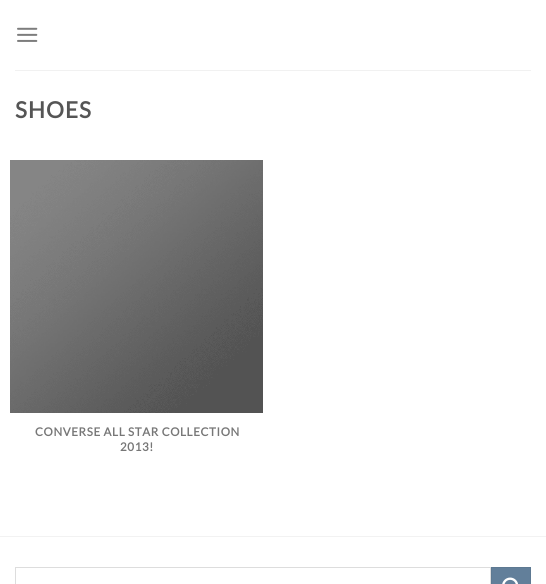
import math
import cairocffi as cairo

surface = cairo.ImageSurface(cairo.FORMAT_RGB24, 546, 584)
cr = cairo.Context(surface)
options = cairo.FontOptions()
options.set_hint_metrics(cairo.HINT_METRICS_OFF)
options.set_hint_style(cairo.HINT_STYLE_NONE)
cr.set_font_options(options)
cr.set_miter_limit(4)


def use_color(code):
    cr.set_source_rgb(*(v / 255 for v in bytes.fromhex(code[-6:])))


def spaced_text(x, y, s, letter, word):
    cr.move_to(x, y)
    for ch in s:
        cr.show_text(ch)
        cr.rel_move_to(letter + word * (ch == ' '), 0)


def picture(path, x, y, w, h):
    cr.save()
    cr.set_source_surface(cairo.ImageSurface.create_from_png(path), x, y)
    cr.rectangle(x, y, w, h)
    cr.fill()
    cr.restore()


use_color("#ffffff")
cr.paint()
picture("img1.png", 17, 27, 21, 15)
use_color("#f1f1f1")
cr.rectangle(15, 70, 516, 1)
cr.fill()
cr.select_font_face("Lato", cairo.FONT_SLANT_NORMAL, cairo.FONT_WEIGHT_BOLD)
cr.set_font_size(22.5)
use_color("#555555")
spaced_text(15, 118, "SHOES", 1, 0)
picture("img2.png", 10, 160, 253, 253)
cr.set_font_size(11.6)
use_color("#777777")
spaced_text(35, 436, "CONVERSE ALL STAR COLLECTION", 0.6, 0)
spaced_text(120, 451, "2013!", 0.6, 0)
use_color("#f2f2f2")
cr.rectangle(0, 536, 546, 1)
cr.fill()
cr.rectangle(15.5, 567.5, 475, 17)
use_color("#dddddd")
cr.set_line_width(1)
cr.stroke()
use_color("#627f9a")
cr.rectangle(491.5, 567.5, 39, 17)
cr.fill_preserve()
use_color("#5d7992")
cr.stroke()
picture("img3.png", 502, 577, 16, 7)
surface.write_to_png("result.png")
